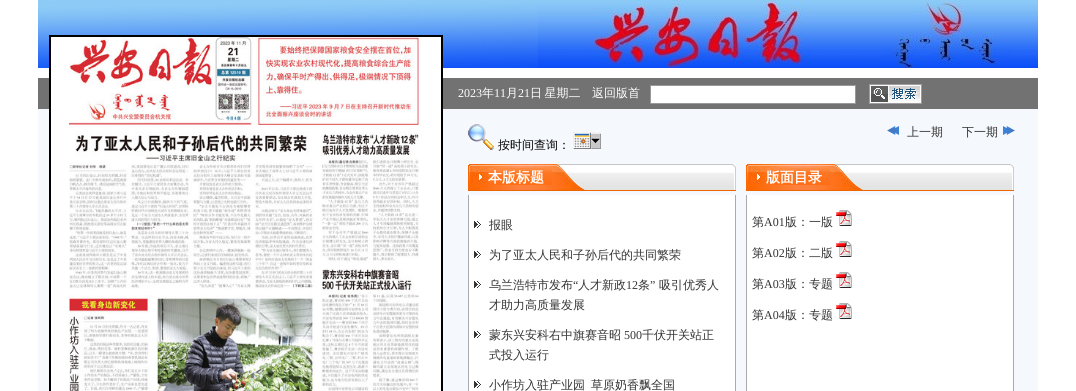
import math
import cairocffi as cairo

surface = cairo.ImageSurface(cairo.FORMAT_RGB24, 1076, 391)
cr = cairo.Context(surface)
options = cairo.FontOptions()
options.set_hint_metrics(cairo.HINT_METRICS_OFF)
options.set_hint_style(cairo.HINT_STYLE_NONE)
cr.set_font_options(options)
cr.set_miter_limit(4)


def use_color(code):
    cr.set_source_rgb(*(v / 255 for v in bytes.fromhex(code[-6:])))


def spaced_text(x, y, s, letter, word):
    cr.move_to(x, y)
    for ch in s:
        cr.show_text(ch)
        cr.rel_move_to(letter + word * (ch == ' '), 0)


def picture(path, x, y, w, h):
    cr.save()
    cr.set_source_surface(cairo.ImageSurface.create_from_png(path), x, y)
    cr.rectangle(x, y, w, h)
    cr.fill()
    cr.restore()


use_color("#ffffff")
cr.paint()
use_color("#f5f8fc")
cr.rectangle(38, 109, 1000, 282)
cr.fill()
picture("img1.png", 38, 0, 500, 68)
picture("img2.png", 538, 0, 500, 68)
use_color("#727272")
cr.rectangle(38, 78, 1000, 31)
cr.fill()
use_color("#ffffff")
cr.rectangle(50, 36, 392, 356)
cr.fill_preserve()
use_color("#000000")
cr.stroke()
picture("img3.png", 69, 37, 350, 354)
cr.select_font_face("Liberation Serif")
cr.set_font_size(12)
use_color("#ffffff")
cr.move_to(458, 97)
cr.show_text("2023")
cr.select_font_face("WenQuanYi Zen Hei Medium")
cr.move_to(482, 97)
cr.show_text("年")
cr.select_font_face("Liberation Serif")
cr.move_to(494, 97)
cr.show_text("11")
cr.select_font_face("WenQuanYi Zen Hei Medium")
cr.move_to(506, 97)
cr.show_text("月")
cr.select_font_face("Liberation Serif")
cr.move_to(518, 97)
cr.show_text("21")
cr.select_font_face("WenQuanYi Zen Hei Medium")
spaced_text(530, 97, "日 星期二", 0, -1)
cr.move_to(592, 97)
cr.show_text("返回版首")
cr.rectangle(650.5, 85.5, 205, 18)
cr.fill_preserve()
use_color("#999999")
cr.set_line_width(1)
cr.stroke()
picture("img4.png", 869, 84, 53, 20)
picture("img5.png", 887, 126, 128, 9)
use_color("#333333")
cr.move_to(907, 136)
cr.show_text("上一期")
cr.move_to(962, 136)
cr.show_text("下一期")
picture("img6.png", 468, 124, 26, 26)
use_color("#000000")
cr.move_to(498, 149)
cr.show_text("按时间查询：")
picture("img7.png", 573, 132, 28, 17)
picture("img8.png", 468, 164, 268, 27)
cr.select_font_face("WenQuanYi Zen Hei", cairo.FONT_SLANT_NORMAL, cairo.FONT_WEIGHT_BOLD)
cr.set_font_size(14)
use_color("#ffffff")
cr.move_to(488, 182)
cr.show_text("本版标题")
cr.rectangle(469, 195, 266, 196)
cr.fill()
use_color("#aaaaaa")
cr.rectangle(735, 195, 1, 196)
cr.fill()
cr.rectangle(468, 195, 1, 196)
cr.fill()
picture("img9.png", 474, 221, 7, 7)
cr.select_font_face("WenQuanYi Zen Hei Medium")
cr.set_font_size(12)
use_color("#333333")
cr.move_to(489, 229)
cr.show_text("报眼")
picture("img9.png", 474, 251, 7, 7)
cr.move_to(489, 259)
cr.show_text("为了亚太人民和子孙后代的共同繁荣")
picture("img9.png", 474, 281, 7, 7)
cr.move_to(489, 289)
cr.show_text("乌兰浩特市发布")
cr.select_font_face("Liberation Serif")
cr.move_to(573, 289)
cr.show_text("“")
cr.select_font_face("WenQuanYi Zen Hei Medium")
cr.move_to(578, 289)
cr.show_text("人才新政")
cr.select_font_face("Liberation Serif")
cr.move_to(626, 289)
cr.show_text("12")
cr.select_font_face("WenQuanYi Zen Hei Medium")
cr.move_to(638, 289)
cr.show_text("条")
cr.select_font_face("Liberation Serif")
cr.move_to(650, 289)
cr.show_text("”")
cr.select_font_face("WenQuanYi Zen Hei Medium")
cr.move_to(659, 289)
cr.show_text("吸引优秀人")
cr.move_to(489, 309)
cr.show_text("才助力高质量发展")
picture("img9.png", 474, 331, 7, 7)
cr.move_to(489, 339)
cr.show_text("蒙东兴安科右中旗赛音昭")
cr.select_font_face("Liberation Serif")
cr.move_to(624, 339)
cr.show_text("500")
cr.select_font_face("WenQuanYi Zen Hei Medium")
cr.move_to(642, 339)
cr.show_text("千伏开关站正")
cr.move_to(489, 359)
cr.show_text("式投入运行")
picture("img9.png", 474, 381, 7, 7)
cr.move_to(489, 389)
cr.show_text("小作坊入驻产业园")
cr.move_to(591, 389)
cr.show_text("草原奶香飘全国")
picture("img8.png", 746, 164, 268, 27)
cr.select_font_face("WenQuanYi Zen Hei", cairo.FONT_SLANT_NORMAL, cairo.FONT_WEIGHT_BOLD)
cr.set_font_size(14)
use_color("#ffffff")
cr.move_to(766, 182)
cr.show_text("版面目录")
cr.rectangle(747, 195, 266, 196)
cr.fill()
use_color("#aaaaaa")
cr.rectangle(1013, 195, 1, 196)
cr.fill()
cr.rectangle(746, 195, 1, 196)
cr.fill()
cr.select_font_face("WenQuanYi Zen Hei Medium")
cr.set_font_size(12)
use_color("#333333")
cr.move_to(752, 226)
cr.show_text("第")
cr.select_font_face("Liberation Serif")
cr.move_to(764, 226)
cr.show_text("A01")
cr.select_font_face("WenQuanYi Zen Hei Medium")
cr.move_to(785, 226)
cr.show_text("版：一版")
picture("img10.png", 836, 210, 16, 16)
cr.move_to(752, 257)
cr.show_text("第")
cr.select_font_face("Liberation Serif")
cr.move_to(764, 257)
cr.show_text("A02")
cr.select_font_face("WenQuanYi Zen Hei Medium")
cr.move_to(785, 257)
cr.show_text("版：二版")
picture("img10.png", 836, 241, 16, 16)
cr.move_to(752, 288)
cr.show_text("第")
cr.select_font_face("Liberation Serif")
cr.move_to(764, 288)
cr.show_text("A03")
cr.select_font_face("WenQuanYi Zen Hei Medium")
cr.move_to(785, 288)
cr.show_text("版：专题")
picture("img10.png", 836, 272, 16, 16)
cr.move_to(752, 319)
cr.show_text("第")
cr.select_font_face("Liberation Serif")
cr.move_to(764, 319)
cr.show_text("A04")
cr.select_font_face("WenQuanYi Zen Hei Medium")
cr.move_to(785, 319)
cr.show_text("版：专题")
picture("img10.png", 836, 303, 16, 16)
surface.write_to_png("result.png")
